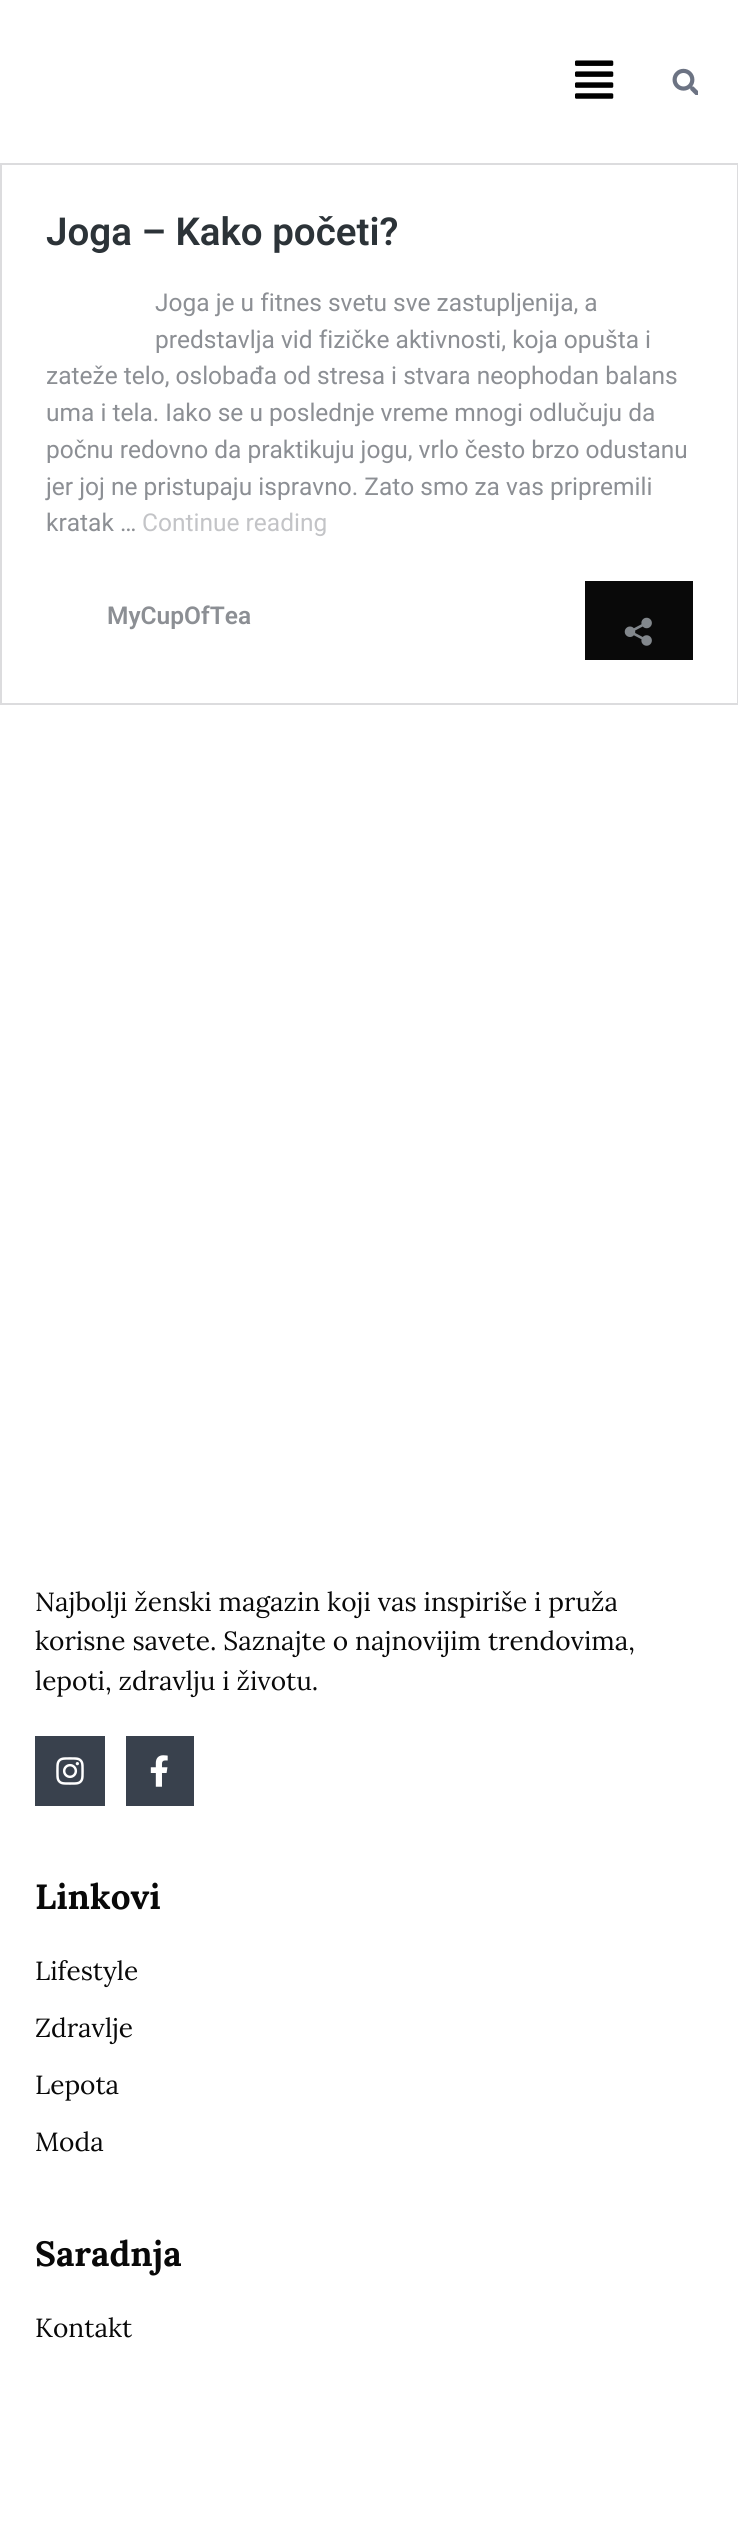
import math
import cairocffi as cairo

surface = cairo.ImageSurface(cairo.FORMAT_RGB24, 738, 2547)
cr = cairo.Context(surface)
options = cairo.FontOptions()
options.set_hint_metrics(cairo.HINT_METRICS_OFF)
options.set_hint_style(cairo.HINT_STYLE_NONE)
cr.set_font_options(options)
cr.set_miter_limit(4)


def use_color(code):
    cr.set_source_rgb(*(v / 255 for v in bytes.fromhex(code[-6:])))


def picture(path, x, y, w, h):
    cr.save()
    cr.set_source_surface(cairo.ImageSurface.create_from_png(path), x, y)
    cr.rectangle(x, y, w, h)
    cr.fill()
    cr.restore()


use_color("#ffffff")
cr.paint()
picture("img1.png", 575, 60, 39, 39)
picture("img2.png", 672, 68, 26, 27)
cr.rectangle(1, 164, 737, 540)
use_color("#dcdcde")
cr.stroke()
cr.select_font_face("Roboto SemiBold")
cr.set_font_size(38.5)
use_color("#2c3338")
cr.move_to(46, 245)
cr.show_text("Joga – Kako početi?")
cr.select_font_face("Roboto")
cr.set_font_size(24.5)
use_color("#8c8f94")
cr.move_to(155, 311)
cr.show_text("Joga je u fitnes svetu sve zastupljenija, a")
cr.move_to(155, 348)
cr.show_text("predstavlja vid fizičke aktivnosti, koja opušta i")
cr.move_to(46, 384)
cr.show_text("zateže telo, oslobađa od stresa i stvara neophodan balans")
cr.move_to(46, 421)
cr.show_text("uma i tela. Iako se u poslednje vreme mnogi odlučuju da")
cr.move_to(46, 458)
cr.show_text("počnu redovno da praktikuju jogu, vrlo često brzo odustanu")
cr.move_to(46, 495)
cr.show_text("jer joj ne pristupaju ispravno. Zato smo za vas pripremili")
cr.move_to(46, 531)
cr.show_text("kratak …")
use_color("#c3c4c7")
cr.move_to(142, 531)
cr.show_text("Continue reading")
cr.select_font_face("Roboto SemiBold")
use_color("#8c8f94")
cr.move_to(107, 624)
cr.show_text("MyCupOfTea")
use_color("#090909")
cr.rectangle(585, 581, 108, 79)
cr.fill()
picture("img3.png", 624, 617, 28, 29)
cr.select_font_face("Lora")
cr.set_font_size(26.25)
cr.move_to(35, 1611)
cr.show_text("Najbolji ženski magazin koji vas inspiriše i pruža")
cr.move_to(35, 1650)
cr.show_text("korisne savete. Saznajte o najnovijim trendovima,")
cr.move_to(35, 1690)
cr.show_text("lepoti, zdravlju i životu.")
use_color("#39414d")
cr.rectangle(35, 1736, 70, 70)
cr.fill()
picture("img4.png", 56, 1757, 28, 28)
cr.rectangle(126, 1736, 68, 70)
cr.fill()
picture("img5.png", 150, 1755, 18, 32)
cr.select_font_face("Lora", cairo.FONT_SLANT_NORMAL, cairo.FONT_WEIGHT_BOLD)
cr.set_font_size(35)
use_color("#090909")
cr.move_to(35, 1909)
cr.show_text("Linkovi")
cr.select_font_face("Lora")
cr.set_font_size(26.25)
cr.move_to(35, 1980)
cr.show_text("Lifestyle")
cr.move_to(35, 2037)
cr.show_text("Zdravlje")
cr.move_to(35, 2094)
cr.show_text("Lepota")
cr.move_to(35, 2151)
cr.show_text("Moda")
cr.select_font_face("Lora", cairo.FONT_SLANT_NORMAL, cairo.FONT_WEIGHT_BOLD)
cr.set_font_size(35)
cr.move_to(35, 2266)
cr.show_text("Saradnja")
cr.select_font_face("Lora")
cr.set_font_size(26.25)
cr.move_to(35, 2337)
cr.show_text("Kontakt")
surface.write_to_png("result.png")
